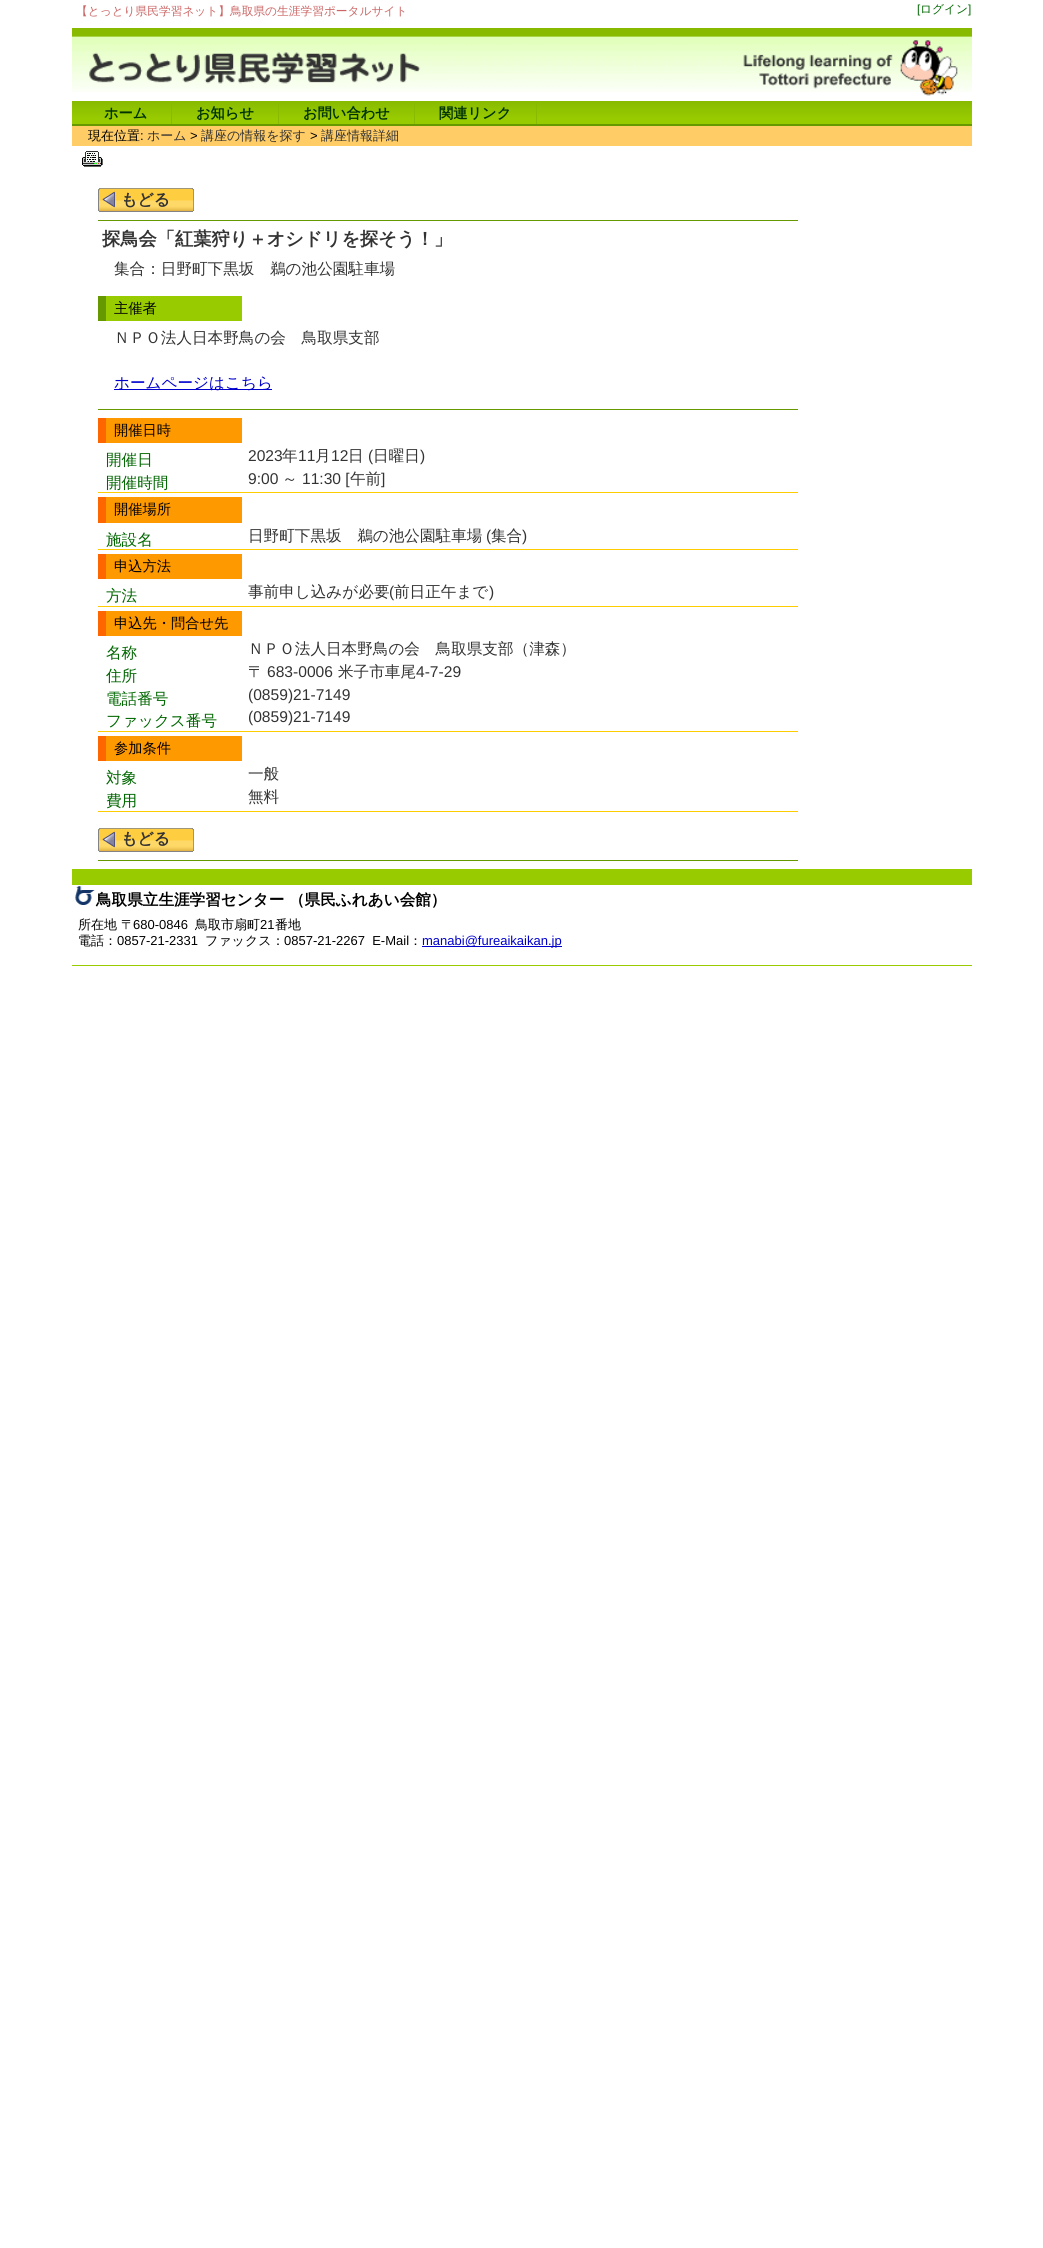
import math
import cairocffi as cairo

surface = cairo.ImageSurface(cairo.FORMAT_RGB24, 1043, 2248)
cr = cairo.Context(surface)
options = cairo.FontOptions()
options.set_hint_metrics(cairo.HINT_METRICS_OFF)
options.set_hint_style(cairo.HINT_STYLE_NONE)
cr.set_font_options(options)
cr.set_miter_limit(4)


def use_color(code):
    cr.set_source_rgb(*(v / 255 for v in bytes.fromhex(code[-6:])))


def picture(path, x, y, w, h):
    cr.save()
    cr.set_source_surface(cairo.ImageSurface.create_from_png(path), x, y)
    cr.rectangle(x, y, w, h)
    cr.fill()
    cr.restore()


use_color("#ffffff")
cr.paint()
cr.select_font_face("WenQuanYi Zen Hei Medium")
cr.set_font_size(11.7)
use_color("#cc6666")
cr.move_to(76, 15)
cr.show_text("【とっとり県民学習ネット】鳥取県の生涯学習ポータルサイト")
cr.select_font_face("Liberation Sans")
use_color("#006600")
cr.move_to(917, 13)
cr.show_text("[")
cr.select_font_face("WenQuanYi Zen Hei Medium")
cr.move_to(920, 13)
cr.show_text("ログイン")
cr.select_font_face("Liberation Sans")
cr.move_to(968, 13)
cr.show_text("]")
picture("img1.png", 72, 28, 900, 68)
picture("img2.png", 72, 101, 900, 23)
use_color("#669900")
cr.rectangle(72, 124, 900, 2)
cr.fill()
use_color("#88bb00")
cr.rectangle(171, 101, 1, 23)
cr.fill()
cr.select_font_face("WenQuanYi Zen Hei", cairo.FONT_SLANT_NORMAL, cairo.FONT_WEIGHT_BOLD)
cr.set_font_size(14.25)
use_color("#003300")
cr.move_to(104, 118)
cr.show_text("ホーム")
use_color("#88bb00")
cr.rectangle(278, 101, 1, 23)
cr.fill()
use_color("#003300")
cr.move_to(196, 118)
cr.show_text("お知らせ")
use_color("#88bb00")
cr.rectangle(414, 101, 1, 23)
cr.fill()
use_color("#003300")
cr.move_to(303, 118)
cr.show_text("お問い合わせ")
use_color("#88bb00")
cr.rectangle(536, 101, 1, 23)
cr.fill()
use_color("#003300")
cr.move_to(439, 118)
cr.show_text("関連リンク")
use_color("#ffcc66")
cr.rectangle(72, 126, 900, 20)
cr.fill()
cr.select_font_face("WenQuanYi Zen Hei Medium")
cr.set_font_size(13)
use_color("#000000")
cr.move_to(88, 140)
cr.show_text("現在位置")
cr.select_font_face("Liberation Sans")
cr.move_to(140, 140)
cr.show_text(":")
cr.select_font_face("WenQuanYi Zen Hei Medium")
use_color("#333333")
cr.move_to(147, 140)
cr.show_text("ホーム")
cr.select_font_face("Liberation Sans")
use_color("#000000")
cr.move_to(190, 140)
cr.show_text(">")
cr.select_font_face("WenQuanYi Zen Hei Medium")
use_color("#333333")
cr.move_to(201, 140)
cr.show_text("講座の情報を探す")
cr.select_font_face("Liberation Sans")
use_color("#000000")
cr.move_to(310, 140)
cr.show_text(">")
cr.select_font_face("WenQuanYi Zen Hei Medium")
use_color("#333333")
cr.move_to(321, 140)
cr.show_text("講座情報詳細")
picture("img3.png", 82, 151, 21, 16)
use_color("#669900")
cr.rectangle(98, 220, 700, 1)
cr.fill()
picture("img4.png", 98, 188, 96, 24)
cr.select_font_face("WenQuanYi Zen Hei", cairo.FONT_SLANT_NORMAL, cairo.FONT_WEIGHT_BOLD)
cr.set_font_size(16)
use_color("#333333")
cr.move_to(121, 205)
cr.show_text("もどる")
use_color("#669900")
cr.rectangle(98, 409, 700, 1)
cr.fill()
cr.set_font_size(18.25)
use_color("#333333")
cr.move_to(102, 245)
cr.show_text("探鳥会「紅葉狩り＋オシドリを探そう！」")
cr.select_font_face("WenQuanYi Zen Hei Medium")
cr.set_font_size(15.6)
cr.move_to(114, 274)
cr.show_text("集合：日野町下黒坂　鵜の池公園駐車場")
use_color("#99cc00")
cr.rectangle(106, 296, 136, 25)
cr.fill()
use_color("#669900")
cr.rectangle(98, 296, 8, 25)
cr.fill()
cr.set_font_size(14.25)
use_color("#000000")
cr.move_to(114, 313)
cr.show_text("主催者")
cr.set_font_size(15.6)
use_color("#333333")
cr.move_to(114, 343)
cr.show_text("ＮＰＯ法人日本野鳥の会　鳥取県支部")
use_color("#0000cc")
cr.rectangle(114, 389, 158, 1)
cr.fill()
cr.move_to(114, 388)
cr.show_text("ホームページはこちら")
use_color("#ffcc00")
cr.rectangle(98, 492, 700, 1)
cr.fill()
use_color("#ff9900")
cr.rectangle(106, 418, 136, 25)
cr.fill()
use_color("#ff6600")
cr.rectangle(98, 418, 8, 25)
cr.fill()
cr.set_font_size(14.25)
use_color("#000000")
cr.move_to(114, 435)
cr.show_text("開催日時")
cr.set_font_size(15.6)
use_color("#006600")
cr.move_to(106, 465)
cr.show_text("開催日")
cr.select_font_face("Liberation Sans")
use_color("#333333")
cr.move_to(248, 461)
cr.show_text("2023")
cr.select_font_face("WenQuanYi Zen Hei Medium")
cr.move_to(282, 461)
cr.show_text("年")
cr.select_font_face("Liberation Sans")
cr.move_to(298, 461)
cr.show_text("11")
cr.select_font_face("WenQuanYi Zen Hei Medium")
cr.move_to(315, 461)
cr.show_text("月")
cr.select_font_face("Liberation Sans")
cr.move_to(331, 461)
cr.show_text("12")
cr.select_font_face("WenQuanYi Zen Hei Medium")
cr.move_to(348, 461)
cr.show_text("日")
cr.select_font_face("Liberation Sans")
cr.move_to(368, 461)
cr.show_text("(")
cr.select_font_face("WenQuanYi Zen Hei Medium")
cr.move_to(373, 461)
cr.show_text("日曜日")
cr.select_font_face("Liberation Sans")
cr.move_to(420, 461)
cr.show_text(")")
cr.select_font_face("WenQuanYi Zen Hei Medium")
use_color("#006600")
cr.move_to(106, 488)
cr.show_text("開催時間")
cr.select_font_face("Liberation Sans")
use_color("#333333")
cr.move_to(248, 484)
cr.show_text("9:00")
cr.select_font_face("WenQuanYi Zen Hei Medium")
cr.move_to(282, 484)
cr.show_text("～")
cr.select_font_face("Liberation Sans")
cr.move_to(302, 484)
cr.show_text("11:30 [")
cr.select_font_face("WenQuanYi Zen Hei Medium")
cr.move_to(350, 484)
cr.show_text("午前")
cr.select_font_face("Liberation Sans")
cr.move_to(381, 484)
cr.show_text("]")
use_color("#ffcc00")
cr.rectangle(98, 549, 700, 1)
cr.fill()
use_color("#ff9900")
cr.rectangle(106, 497, 136, 26)
cr.fill()
use_color("#ff6600")
cr.rectangle(98, 497, 8, 26)
cr.fill()
cr.select_font_face("WenQuanYi Zen Hei Medium")
cr.set_font_size(14.25)
use_color("#000000")
cr.move_to(114, 514)
cr.show_text("開催場所")
cr.set_font_size(15.6)
use_color("#006600")
cr.move_to(106, 545)
cr.show_text("施設名")
use_color("#333333")
cr.move_to(248, 541)
cr.show_text("日野町下黒坂　鵜の池公園駐車場")
cr.select_font_face("Liberation Sans")
cr.move_to(486, 541)
cr.show_text("(")
cr.select_font_face("WenQuanYi Zen Hei Medium")
cr.move_to(491, 541)
cr.show_text("集合")
cr.select_font_face("Liberation Sans")
cr.move_to(522, 541)
cr.show_text(")")
use_color("#ffcc00")
cr.rectangle(98, 606, 700, 1)
cr.fill()
use_color("#ff9900")
cr.rectangle(106, 554, 136, 25)
cr.fill()
use_color("#ff6600")
cr.rectangle(98, 554, 8, 25)
cr.fill()
cr.select_font_face("WenQuanYi Zen Hei Medium")
cr.set_font_size(14.25)
use_color("#000000")
cr.move_to(114, 571)
cr.show_text("申込方法")
cr.set_font_size(15.6)
use_color("#006600")
cr.move_to(106, 601)
cr.show_text("方法")
use_color("#333333")
cr.move_to(248, 597)
cr.show_text("事前申し込みが必要")
cr.select_font_face("Liberation Sans")
cr.move_to(389, 597)
cr.show_text("(")
cr.select_font_face("WenQuanYi Zen Hei Medium")
cr.move_to(394, 597)
cr.show_text("前日正午まで")
cr.select_font_face("Liberation Sans")
cr.move_to(489, 597)
cr.show_text(")")
use_color("#ffcc00")
cr.rectangle(98, 731, 700, 1)
cr.fill()
use_color("#ff9900")
cr.rectangle(106, 611, 136, 25)
cr.fill()
use_color("#ff6600")
cr.rectangle(98, 611, 8, 25)
cr.fill()
cr.select_font_face("WenQuanYi Zen Hei Medium")
cr.set_font_size(14.25)
use_color("#000000")
cr.move_to(114, 628)
cr.show_text("申込先・問合せ先")
cr.set_font_size(15.6)
use_color("#006600")
cr.move_to(106, 658)
cr.show_text("名称")
use_color("#333333")
cr.move_to(248, 654)
cr.show_text("ＮＰＯ法人日本野鳥の会　鳥取県支部（津森）")
use_color("#006600")
cr.move_to(106, 681)
cr.show_text("住所")
use_color("#333333")
cr.move_to(248, 677)
cr.show_text("〒")
cr.select_font_face("Liberation Sans")
cr.move_to(267, 677)
cr.show_text("683-0006")
cr.select_font_face("WenQuanYi Zen Hei Medium")
cr.move_to(338, 677)
cr.show_text("米子市車尾")
cr.select_font_face("Liberation Sans")
cr.move_to(416, 677)
cr.show_text("4-7-29")
cr.select_font_face("WenQuanYi Zen Hei Medium")
use_color("#006600")
cr.move_to(106, 704)
cr.show_text("電話番号")
cr.select_font_face("Liberation Sans")
use_color("#333333")
cr.move_to(248, 700)
cr.show_text("(0859)21-7149")
cr.select_font_face("WenQuanYi Zen Hei Medium")
use_color("#006600")
cr.move_to(106, 726)
cr.show_text("ファックス番号")
cr.select_font_face("Liberation Sans")
use_color("#333333")
cr.move_to(248, 722)
cr.show_text("(0859)21-7149")
use_color("#ffcc00")
cr.rectangle(98, 811, 700, 1)
cr.fill()
use_color("#ff9900")
cr.rectangle(106, 736, 136, 25)
cr.fill()
use_color("#ff6600")
cr.rectangle(98, 736, 8, 25)
cr.fill()
cr.select_font_face("WenQuanYi Zen Hei Medium")
cr.set_font_size(14.25)
use_color("#000000")
cr.move_to(114, 753)
cr.show_text("参加条件")
cr.set_font_size(15.6)
use_color("#006600")
cr.move_to(106, 783)
cr.show_text("対象")
use_color("#333333")
cr.move_to(248, 779)
cr.show_text("一般")
use_color("#006600")
cr.move_to(106, 806)
cr.show_text("費用")
use_color("#333333")
cr.move_to(248, 802)
cr.show_text("無料")
use_color("#669900")
cr.rectangle(98, 860, 700, 1)
cr.fill()
picture("img4.png", 98, 828, 96, 24)
cr.select_font_face("WenQuanYi Zen Hei", cairo.FONT_SLANT_NORMAL, cairo.FONT_WEIGHT_BOLD)
cr.set_font_size(16)
use_color("#333333")
cr.move_to(121, 844)
cr.show_text("もどる")
use_color("#99cc00")
cr.rectangle(72, 869, 900, 16)
cr.fill()
cr.rectangle(72, 965, 900, 1)
cr.fill()
picture("img5.png", 75, 886, 20, 19)
cr.set_font_size(15.6)
use_color("#000000")
cr.move_to(96, 905)
cr.show_text("鳥取県立生涯学習センター （県民ふれあい会館）")
cr.select_font_face("WenQuanYi Zen Hei Medium")
cr.set_font_size(13)
cr.move_to(78, 929)
cr.show_text("所在地 〒")
cr.select_font_face("Liberation Sans")
cr.move_to(133, 929)
cr.show_text("680-0846")
cr.select_font_face("WenQuanYi Zen Hei Medium")
cr.move_to(195, 929)
cr.show_text("鳥取市扇町")
cr.select_font_face("Liberation Sans")
cr.move_to(260, 929)
cr.show_text("21")
cr.select_font_face("WenQuanYi Zen Hei Medium")
cr.move_to(275, 929)
cr.show_text("番地")
cr.move_to(78, 945)
cr.show_text("電話：")
cr.select_font_face("Liberation Sans")
cr.move_to(117, 945)
cr.show_text("0857-21-2331")
cr.select_font_face("WenQuanYi Zen Hei Medium")
cr.move_to(205, 945)
cr.show_text("ファックス：")
cr.select_font_face("Liberation Sans")
cr.move_to(284, 945)
cr.show_text("0857-21-2267  E-Mail")
cr.select_font_face("WenQuanYi Zen Hei Medium")
cr.move_to(409, 945)
cr.show_text("：")
use_color("#0000cc")
cr.rectangle(422, 946, 140, 1)
cr.fill()
cr.select_font_face("Liberation Sans")
cr.move_to(422, 945)
cr.show_text("manabi@fureaikaikan.jp")
surface.write_to_png("result.png")
